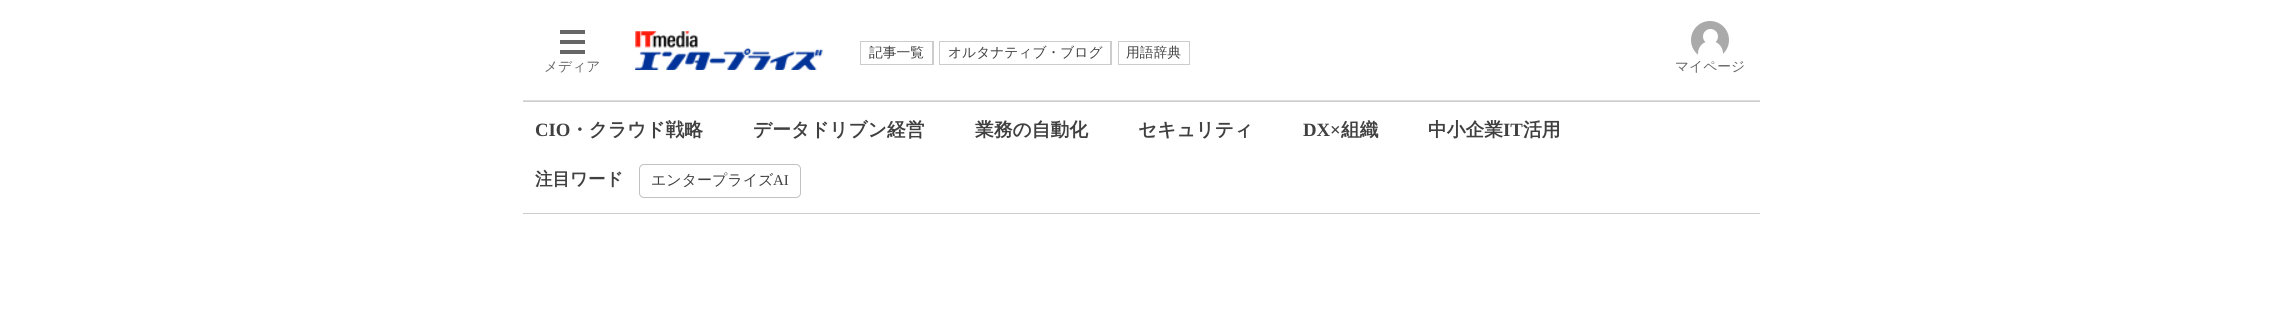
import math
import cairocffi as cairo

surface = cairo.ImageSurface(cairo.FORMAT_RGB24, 2282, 319)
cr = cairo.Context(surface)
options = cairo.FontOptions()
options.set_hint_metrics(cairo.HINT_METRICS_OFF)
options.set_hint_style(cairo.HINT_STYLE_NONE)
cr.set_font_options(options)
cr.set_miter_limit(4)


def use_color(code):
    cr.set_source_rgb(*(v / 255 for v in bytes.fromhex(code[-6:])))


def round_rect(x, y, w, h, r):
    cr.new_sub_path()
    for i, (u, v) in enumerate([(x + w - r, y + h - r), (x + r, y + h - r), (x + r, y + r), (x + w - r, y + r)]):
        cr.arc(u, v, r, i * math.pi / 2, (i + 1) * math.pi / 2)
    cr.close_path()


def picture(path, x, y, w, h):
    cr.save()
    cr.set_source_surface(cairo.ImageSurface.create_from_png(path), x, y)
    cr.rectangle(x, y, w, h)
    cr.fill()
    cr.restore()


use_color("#ffffff")
cr.paint()
use_color("#dddddd")
cr.rectangle(523, 100, 1237, 1)
cr.fill()
picture("img1.png", 635, 31, 188, 39)
use_color("#cccccc")
cr.rectangle(933, 41, 1, 24)
cr.fill()
cr.rectangle(860.5, 41.5, 72, 23)
cr.set_line_width(1)
cr.stroke()
cr.select_font_face("WenQuanYi Zen Hei Medium")
cr.set_font_size(13.75)
use_color("#404040")
cr.move_to(869, 57)
cr.show_text("記事一覧")
use_color("#cccccc")
cr.rectangle(1111, 41, 1, 24)
cr.fill()
cr.rectangle(939.5, 41.5, 171, 23)
cr.stroke()
use_color("#404040")
cr.move_to(948, 57)
cr.show_text("オルタナティブ・ブログ")
cr.rectangle(1118.5, 41.5, 71, 23)
use_color("#cccccc")
cr.stroke()
use_color("#404040")
cr.move_to(1126, 57)
cr.show_text("用語辞典")
use_color("#666666")
cr.rectangle(560, 30, 25, 4)
cr.fill()
cr.rectangle(560, 40, 25, 4)
cr.fill()
cr.rectangle(560, 50, 25, 4)
cr.fill()
cr.move_to(544, 71)
cr.show_text("メディア")
use_color("#aaaaaa")
cr.new_path()
cr.arc(1710, 40, 19, 0, 2 * math.pi)
cr.fill()
use_color("#ffffff")
cr.new_path()
cr.move_to(1710.5, 41)
cr.curve_to(1717.5, 41, 1723, 46.5, 1723, 53.5)
cr.line_to(1723, 59)
cr.line_to(1698, 59)
cr.line_to(1698, 53.5)
cr.curve_to(1698, 46.5, 1703.5, 41, 1710.5, 41)
cr.close_path()
cr.fill()
cr.arc(1710.5, 36.5, 7.5, 0, 2 * math.pi)
cr.fill()
use_color("#666666")
cr.move_to(1675, 71)
cr.show_text("マイページ")
use_color("#cccccc")
cr.rectangle(523, 101, 1237, 1)
cr.fill()
cr.rectangle(523, 213, 1237, 1)
cr.fill()
cr.select_font_face("Liberation Serif", cairo.FONT_SLANT_NORMAL, cairo.FONT_WEIGHT_BOLD)
cr.set_font_size(18.75)
use_color("#404040")
cr.move_to(535, 136)
cr.show_text("CIO")
cr.select_font_face("WenQuanYi Zen Hei", cairo.FONT_SLANT_NORMAL, cairo.FONT_WEIGHT_BOLD)
cr.move_to(570, 136)
cr.show_text("・クラウド戦略")
cr.move_to(753, 136)
cr.show_text("データドリブン経営")
cr.move_to(975, 136)
cr.show_text("業務の自動化")
cr.move_to(1138, 136)
cr.show_text("セキュリティ")
cr.select_font_face("Liberation Serif", cairo.FONT_SLANT_NORMAL, cairo.FONT_WEIGHT_BOLD)
cr.move_to(1303, 136)
cr.show_text("DX×")
cr.select_font_face("WenQuanYi Zen Hei", cairo.FONT_SLANT_NORMAL, cairo.FONT_WEIGHT_BOLD)
cr.move_to(1341, 136)
cr.show_text("組織")
cr.move_to(1428, 136)
cr.show_text("中小企業")
cr.select_font_face("Liberation Serif", cairo.FONT_SLANT_NORMAL, cairo.FONT_WEIGHT_BOLD)
cr.move_to(1503, 136)
cr.show_text("IT")
cr.select_font_face("WenQuanYi Zen Hei", cairo.FONT_SLANT_NORMAL, cairo.FONT_WEIGHT_BOLD)
cr.move_to(1523, 136)
cr.show_text("活用")
cr.set_font_size(17.5)
cr.move_to(535, 185)
cr.show_text("注目ワード")
round_rect(639.5, 164.5, 161, 33, 4.5)
use_color("#c1c1c1")
cr.stroke()
cr.select_font_face("WenQuanYi Zen Hei Medium")
cr.set_font_size(15)
use_color("#404040")
cr.move_to(651, 185)
cr.show_text("エンタープライズ")
cr.select_font_face("Liberation Serif")
cr.move_to(773, 185)
cr.show_text("AI")
surface.write_to_png("result.png")
